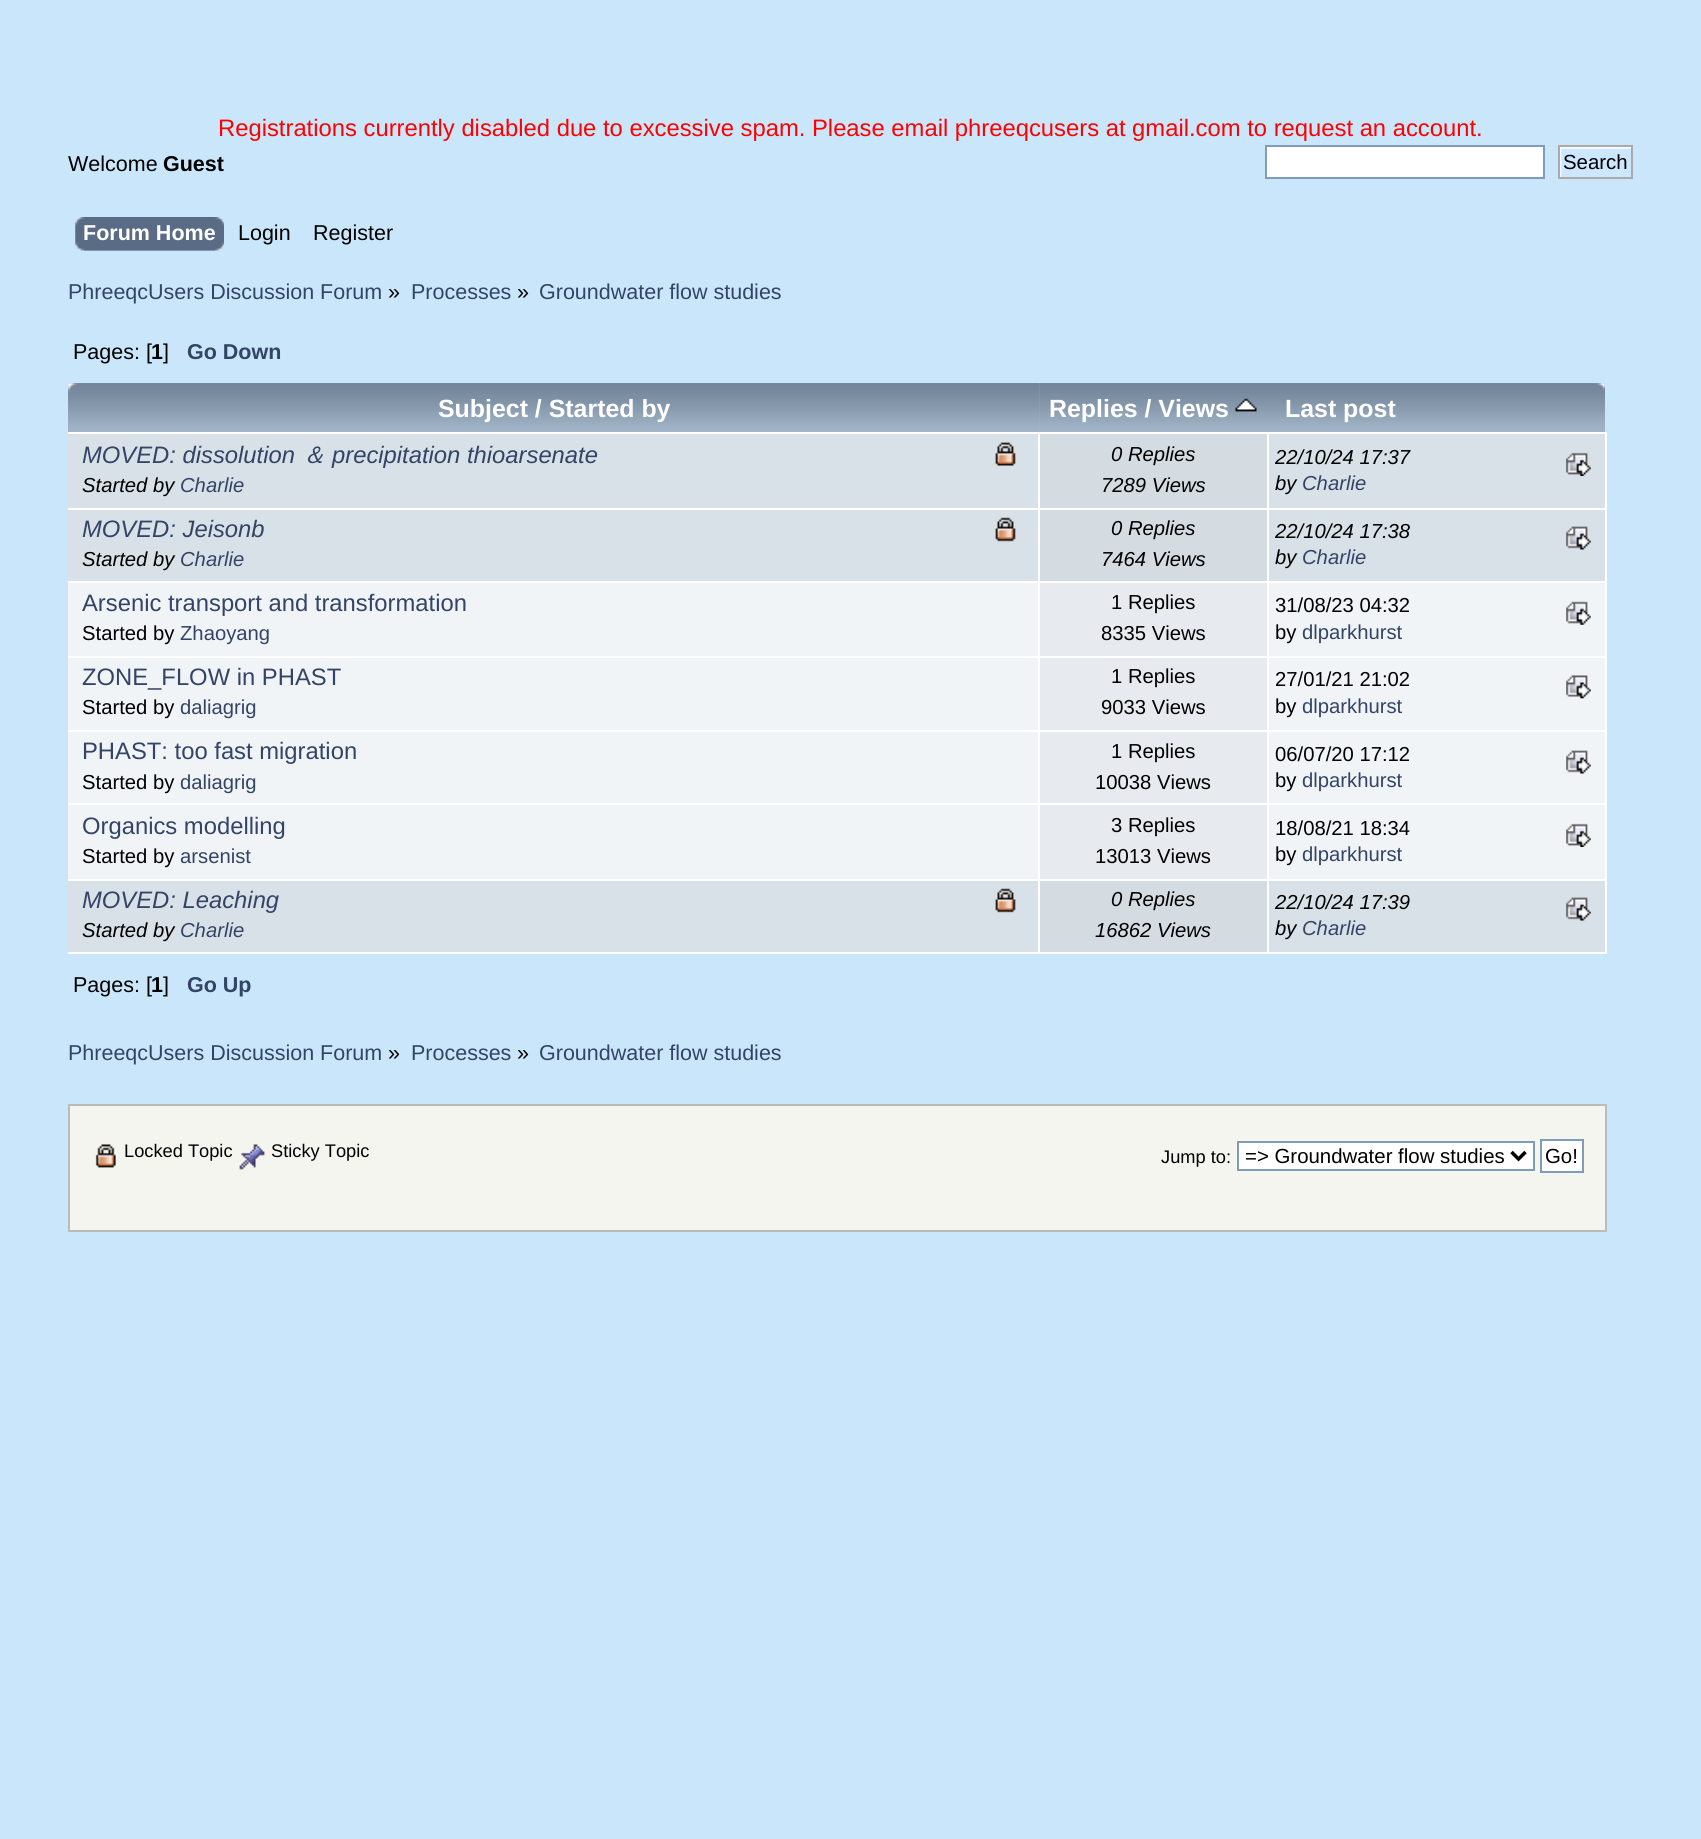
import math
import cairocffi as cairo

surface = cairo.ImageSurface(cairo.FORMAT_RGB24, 1701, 1839)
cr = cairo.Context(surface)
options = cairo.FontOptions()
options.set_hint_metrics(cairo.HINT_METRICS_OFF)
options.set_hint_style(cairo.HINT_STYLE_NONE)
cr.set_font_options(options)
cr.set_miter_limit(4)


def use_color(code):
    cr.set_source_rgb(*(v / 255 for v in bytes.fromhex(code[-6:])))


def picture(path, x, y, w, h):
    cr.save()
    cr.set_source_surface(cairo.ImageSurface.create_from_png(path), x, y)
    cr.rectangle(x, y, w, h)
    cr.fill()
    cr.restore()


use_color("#c9e6fb")
cr.paint()
cr.select_font_face("Liberation Sans")
cr.set_font_size(23.8)
use_color("#ff0000")
cr.move_to(218, 136)
cr.show_text("Registrations currently disabled due to excessive spam. Please email phreeqcusers at gmail.com to request an account.")
cr.set_font_size(21.5)
use_color("#000000")
cr.move_to(68, 171)
cr.show_text("Welcome")
cr.select_font_face("Liberation Sans", cairo.FONT_SLANT_NORMAL, cairo.FONT_WEIGHT_BOLD)
cr.move_to(163, 171)
cr.show_text("Guest")
use_color("#ffffff")
cr.rectangle(1266, 146, 278, 32)
cr.fill_preserve()
use_color("#7f9db9")
cr.stroke()
picture("img1.png", 1560, 147, 71, 30)
cr.rectangle(1559, 146, 73, 32)
use_color("#aaaaaa")
cr.stroke()
cr.select_font_face("Liberation Sans")
cr.set_font_size(20.4)
use_color("#000000")
cr.move_to(1563, 169)
cr.show_text("Search")
picture("img2.png", 84, 217, 140, 34)
picture("img3.png", 75, 217, 141, 34)
cr.select_font_face("Liberation Sans", cairo.FONT_SLANT_NORMAL, cairo.FONT_WEIGHT_BOLD)
cr.set_font_size(21.5)
use_color("#ffffff")
cr.move_to(83, 240)
cr.show_text("Forum Home")
cr.select_font_face("Liberation Sans")
use_color("#000000")
cr.move_to(238, 240)
cr.show_text("Login")
cr.move_to(313, 240)
cr.show_text("Register")
use_color("#334466")
cr.move_to(68, 299)
cr.show_text("PhreeqcUsers Discussion Forum")
use_color("#000000")
cr.move_to(388, 299)
cr.show_text("»")
use_color("#334466")
cr.move_to(411, 299)
cr.show_text("Processes")
use_color("#000000")
cr.move_to(517, 299)
cr.show_text("»")
use_color("#334466")
cr.move_to(539, 299)
cr.show_text("Groundwater flow studies")
use_color("#000000")
cr.move_to(73, 359)
cr.show_text("Pages: [")
cr.select_font_face("Liberation Sans", cairo.FONT_SLANT_NORMAL, cairo.FONT_WEIGHT_BOLD)
cr.move_to(151, 359)
cr.show_text("1")
cr.select_font_face("Liberation Sans")
cr.move_to(163, 359)
cr.show_text("]")
cr.select_font_face("Liberation Sans", cairo.FONT_SLANT_NORMAL, cairo.FONT_WEIGHT_BOLD)
use_color("#334466")
cr.move_to(187, 359)
cr.show_text("Go Down")
use_color("#ffffff")
cr.rectangle(68, 432, 1539, 2)
cr.fill()
picture("img4.png", 68, 383, 972, 49)
cr.set_font_size(24.9)
cr.move_to(438, 417)
cr.show_text("Subject / Started by")
picture("img5.png", 1039, 383, 228, 49)
cr.move_to(1049, 417)
cr.show_text("Replies / Views")
picture("img6.png", 1235, 398, 22, 14)
picture("img7.png", 1267, 383, 338, 49)
cr.move_to(1285, 417)
cr.show_text("Last post")
use_color("#d8e1e7")
cr.rectangle(68, 434, 970, 74)
cr.fill()
picture("img8.png", 995, 442, 21, 24)
use_color("#ffffff")
cr.rectangle(1605, 432, 2, 522)
cr.fill()
cr.rectangle(1267, 952, 340, 2)
cr.fill()
cr.rectangle(1267, 879, 2, 75)
cr.fill()
cr.rectangle(1267, 879, 340, 2)
cr.fill()
cr.rectangle(1267, 803, 2, 77)
cr.fill()
cr.rectangle(1267, 803, 340, 2)
cr.fill()
cr.rectangle(1267, 730, 2, 75)
cr.fill()
cr.rectangle(1267, 730, 340, 2)
cr.fill()
cr.rectangle(1267, 656, 2, 76)
cr.fill()
cr.rectangle(1267, 656, 340, 2)
cr.fill()
cr.rectangle(1267, 581, 2, 77)
cr.fill()
cr.rectangle(1267, 581, 340, 2)
cr.fill()
cr.rectangle(1267, 508, 2, 75)
cr.fill()
cr.rectangle(1267, 508, 340, 2)
cr.fill()
cr.rectangle(1267, 432, 2, 77)
cr.fill()
cr.rectangle(1038, 952, 231, 2)
cr.fill()
cr.rectangle(1038, 879, 2, 75)
cr.fill()
cr.rectangle(1038, 879, 231, 2)
cr.fill()
cr.rectangle(1038, 803, 2, 77)
cr.fill()
cr.rectangle(1038, 803, 231, 2)
cr.fill()
cr.rectangle(1038, 730, 2, 75)
cr.fill()
cr.rectangle(1038, 730, 231, 2)
cr.fill()
cr.rectangle(1038, 656, 2, 76)
cr.fill()
cr.rectangle(1038, 656, 231, 2)
cr.fill()
cr.rectangle(1038, 581, 2, 77)
cr.fill()
cr.rectangle(1038, 581, 231, 2)
cr.fill()
cr.rectangle(1038, 508, 2, 75)
cr.fill()
cr.rectangle(1038, 508, 231, 2)
cr.fill()
cr.rectangle(1038, 432, 2, 77)
cr.fill()
cr.rectangle(68, 508, 972, 2)
cr.fill()
cr.select_font_face("Liberation Sans", cairo.FONT_SLANT_ITALIC)
cr.set_font_size(23.8)
use_color("#334466")
cr.move_to(82, 463)
cr.show_text("MOVED: dissolution")
cr.select_font_face("WenQuanYi Zen Hei Medium", cairo.FONT_SLANT_ITALIC)
cr.move_to(302, 463)
cr.show_text("＆")
cr.select_font_face("Liberation Sans", cairo.FONT_SLANT_ITALIC)
cr.move_to(332, 463)
cr.show_text("precipitation thioarsenate")
cr.set_font_size(20.25)
use_color("#000000")
cr.move_to(82, 492)
cr.show_text("Started by")
use_color("#334466")
cr.move_to(180, 492)
cr.show_text("Charlie")
use_color("#d4dce2")
cr.rectangle(1040, 434, 227, 74)
cr.fill()
use_color("#000000")
cr.move_to(1111, 461)
cr.show_text("0 Replies")
cr.move_to(1101, 492)
cr.show_text("7289 Views")
use_color("#d8e1e7")
cr.rectangle(1269, 434, 336, 74)
cr.fill()
use_color("#000000")
cr.move_to(1275, 464)
cr.show_text("22/10/24 17:37")
picture("img9.png", 1566, 452, 25, 24)
cr.move_to(1275, 490)
cr.show_text("by")
use_color("#334466")
cr.move_to(1302, 490)
cr.show_text("Charlie")
use_color("#d8e1e7")
cr.rectangle(68, 510, 970, 71)
cr.fill()
picture("img10.png", 995, 517, 21, 25)
use_color("#ffffff")
cr.rectangle(68, 581, 972, 2)
cr.fill()
cr.set_font_size(23.8)
use_color("#334466")
cr.move_to(82, 537)
cr.show_text("MOVED: Jeisonb")
cr.set_font_size(20.25)
use_color("#000000")
cr.move_to(82, 566)
cr.show_text("Started by")
use_color("#334466")
cr.move_to(180, 566)
cr.show_text("Charlie")
use_color("#d4dce2")
cr.rectangle(1040, 510, 227, 71)
cr.fill()
use_color("#000000")
cr.move_to(1111, 535)
cr.show_text("0 Replies")
cr.move_to(1101, 566)
cr.show_text("7464 Views")
use_color("#d8e1e7")
cr.rectangle(1269, 510, 336, 71)
cr.fill()
use_color("#000000")
cr.move_to(1275, 538)
cr.show_text("22/10/24 17:38")
picture("img11.png", 1566, 526, 25, 24)
cr.move_to(1275, 564)
cr.show_text("by")
use_color("#334466")
cr.move_to(1302, 564)
cr.show_text("Charlie")
use_color("#f0f4f7")
cr.rectangle(68, 583, 970, 73)
cr.fill()
use_color("#ffffff")
cr.rectangle(68, 656, 972, 2)
cr.fill()
cr.select_font_face("Liberation Sans")
cr.set_font_size(23.8)
use_color("#334466")
cr.move_to(82, 611)
cr.show_text("Arsenic transport and transformation")
cr.set_font_size(20.25)
use_color("#000000")
cr.move_to(82, 640)
cr.show_text("Started by")
use_color("#334466")
cr.move_to(180, 640)
cr.show_text("Zhaoyang")
use_color("#e7eaef")
cr.rectangle(1040, 583, 227, 73)
cr.fill()
use_color("#000000")
cr.move_to(1111, 609)
cr.show_text("1 Replies")
cr.move_to(1101, 640)
cr.show_text("8335 Views")
use_color("#f0f4f7")
cr.rectangle(1269, 583, 336, 73)
cr.fill()
use_color("#000000")
cr.move_to(1275, 612)
cr.show_text("31/08/23 04:32")
picture("img12.png", 1566, 601, 25, 24)
cr.move_to(1275, 639)
cr.show_text("by")
use_color("#334466")
cr.move_to(1302, 639)
cr.show_text("dlparkhurst")
use_color("#f0f4f7")
cr.rectangle(68, 658, 970, 72)
cr.fill()
use_color("#ffffff")
cr.rectangle(68, 730, 972, 2)
cr.fill()
cr.set_font_size(23.8)
use_color("#334466")
cr.move_to(82, 685)
cr.show_text("ZONE_FLOW in PHAST")
cr.set_font_size(20.25)
use_color("#000000")
cr.move_to(82, 714)
cr.show_text("Started by")
use_color("#334466")
cr.move_to(180, 714)
cr.show_text("daliagrig")
use_color("#e7eaef")
cr.rectangle(1040, 658, 227, 72)
cr.fill()
use_color("#000000")
cr.move_to(1111, 683)
cr.show_text("1 Replies")
cr.move_to(1101, 714)
cr.show_text("9033 Views")
use_color("#f0f4f7")
cr.rectangle(1269, 658, 336, 72)
cr.fill()
use_color("#000000")
cr.move_to(1275, 686)
cr.show_text("27/01/21 21:02")
picture("img13.png", 1566, 675, 25, 24)
cr.move_to(1275, 713)
cr.show_text("by")
use_color("#334466")
cr.move_to(1302, 713)
cr.show_text("dlparkhurst")
use_color("#f0f4f7")
cr.rectangle(68, 732, 970, 71)
cr.fill()
use_color("#ffffff")
cr.rectangle(68, 803, 972, 2)
cr.fill()
cr.set_font_size(23.8)
use_color("#334466")
cr.move_to(82, 759)
cr.show_text("PHAST: too fast migration")
cr.set_font_size(20.25)
use_color("#000000")
cr.move_to(82, 789)
cr.show_text("Started by")
use_color("#334466")
cr.move_to(180, 789)
cr.show_text("daliagrig")
use_color("#e7eaef")
cr.rectangle(1040, 732, 227, 71)
cr.fill()
use_color("#000000")
cr.move_to(1111, 758)
cr.show_text("1 Replies")
cr.move_to(1095, 789)
cr.show_text("10038 Views")
use_color("#f0f4f7")
cr.rectangle(1269, 732, 336, 71)
cr.fill()
use_color("#000000")
cr.move_to(1275, 761)
cr.show_text("06/07/20 17:12")
picture("img14.png", 1566, 750, 25, 24)
cr.move_to(1275, 787)
cr.show_text("by")
use_color("#334466")
cr.move_to(1302, 787)
cr.show_text("dlparkhurst")
use_color("#f0f4f7")
cr.rectangle(68, 805, 970, 74)
cr.fill()
use_color("#ffffff")
cr.rectangle(68, 879, 972, 2)
cr.fill()
cr.set_font_size(23.8)
use_color("#334466")
cr.move_to(82, 834)
cr.show_text("Organics modelling")
cr.set_font_size(20.25)
use_color("#000000")
cr.move_to(82, 863)
cr.show_text("Started by")
use_color("#334466")
cr.move_to(180, 863)
cr.show_text("arsenist")
use_color("#e7eaef")
cr.rectangle(1040, 805, 227, 74)
cr.fill()
use_color("#000000")
cr.move_to(1111, 832)
cr.show_text("3 Replies")
cr.move_to(1095, 863)
cr.show_text("13013 Views")
use_color("#f0f4f7")
cr.rectangle(1269, 805, 336, 74)
cr.fill()
use_color("#000000")
cr.move_to(1275, 835)
cr.show_text("18/08/21 18:34")
picture("img15.png", 1566, 823, 25, 24)
cr.move_to(1275, 861)
cr.show_text("by")
use_color("#334466")
cr.move_to(1302, 861)
cr.show_text("dlparkhurst")
use_color("#d8e1e7")
cr.rectangle(68, 881, 970, 71)
cr.fill()
picture("img10.png", 995, 888, 21, 25)
use_color("#ffffff")
cr.rectangle(68, 952, 972, 2)
cr.fill()
cr.select_font_face("Liberation Sans", cairo.FONT_SLANT_ITALIC)
cr.set_font_size(23.8)
use_color("#334466")
cr.move_to(82, 908)
cr.show_text("MOVED: Leaching")
cr.set_font_size(20.25)
use_color("#000000")
cr.move_to(82, 937)
cr.show_text("Started by")
use_color("#334466")
cr.move_to(180, 937)
cr.show_text("Charlie")
use_color("#d4dce2")
cr.rectangle(1040, 881, 227, 71)
cr.fill()
use_color("#000000")
cr.move_to(1111, 906)
cr.show_text("0 Replies")
cr.move_to(1095, 937)
cr.show_text("16862 Views")
use_color("#d8e1e7")
cr.rectangle(1269, 881, 336, 71)
cr.fill()
use_color("#000000")
cr.move_to(1275, 909)
cr.show_text("22/10/24 17:39")
picture("img11.png", 1566, 897, 25, 24)
cr.move_to(1275, 935)
cr.show_text("by")
use_color("#334466")
cr.move_to(1302, 935)
cr.show_text("Charlie")
cr.select_font_face("Liberation Sans")
cr.set_font_size(21.5)
use_color("#000000")
cr.move_to(73, 992)
cr.show_text("Pages: [")
cr.select_font_face("Liberation Sans", cairo.FONT_SLANT_NORMAL, cairo.FONT_WEIGHT_BOLD)
cr.move_to(151, 992)
cr.show_text("1")
cr.select_font_face("Liberation Sans")
cr.move_to(163, 992)
cr.show_text("]")
cr.select_font_face("Liberation Sans", cairo.FONT_SLANT_NORMAL, cairo.FONT_WEIGHT_BOLD)
use_color("#334466")
cr.move_to(187, 992)
cr.show_text("Go Up")
cr.select_font_face("Liberation Sans")
cr.move_to(68, 1060)
cr.show_text("PhreeqcUsers Discussion Forum")
use_color("#000000")
cr.move_to(388, 1060)
cr.show_text("»")
use_color("#334466")
cr.move_to(411, 1060)
cr.show_text("Processes")
use_color("#000000")
cr.move_to(517, 1060)
cr.show_text("»")
use_color("#334466")
cr.move_to(539, 1060)
cr.show_text("Groundwater flow studies")
use_color("#f5f5f0")
cr.rectangle(69, 1105, 1537, 126)
cr.fill_preserve()
use_color("#bbbbbb")
cr.stroke()
picture("img16.png", 95, 1144, 21, 24)
cr.set_font_size(18.25)
use_color("#000000")
cr.move_to(124, 1157)
cr.show_text("Locked Topic")
picture("img17.png", 239, 1144, 26, 26)
cr.move_to(271, 1157)
cr.show_text("Sticky Topic")
cr.move_to(1161, 1163)
cr.show_text("Jump to:")
use_color("#ffffff")
cr.rectangle(1238, 1142, 296, 28)
cr.fill_preserve()
use_color("#7f9db9")
cr.stroke()
cr.new_path()
cr.move_to(1511.5, 1152)
cr.line_to(1518.5, 1159)
cr.line_to(1525.5, 1152)
use_color("#000000")
cr.set_line_width(3.5)
cr.stroke()
cr.set_font_size(20.4)
cr.move_to(1245, 1163)
cr.show_text("=> Groundwater flow studies")
use_color("#ffffff")
cr.rectangle(1541, 1140, 42, 32)
cr.fill_preserve()
use_color("#7f9db9")
cr.set_line_width(2)
cr.stroke()
use_color("#000000")
cr.move_to(1545, 1163)
cr.show_text("Go!")
surface.write_to_png("result.png")
